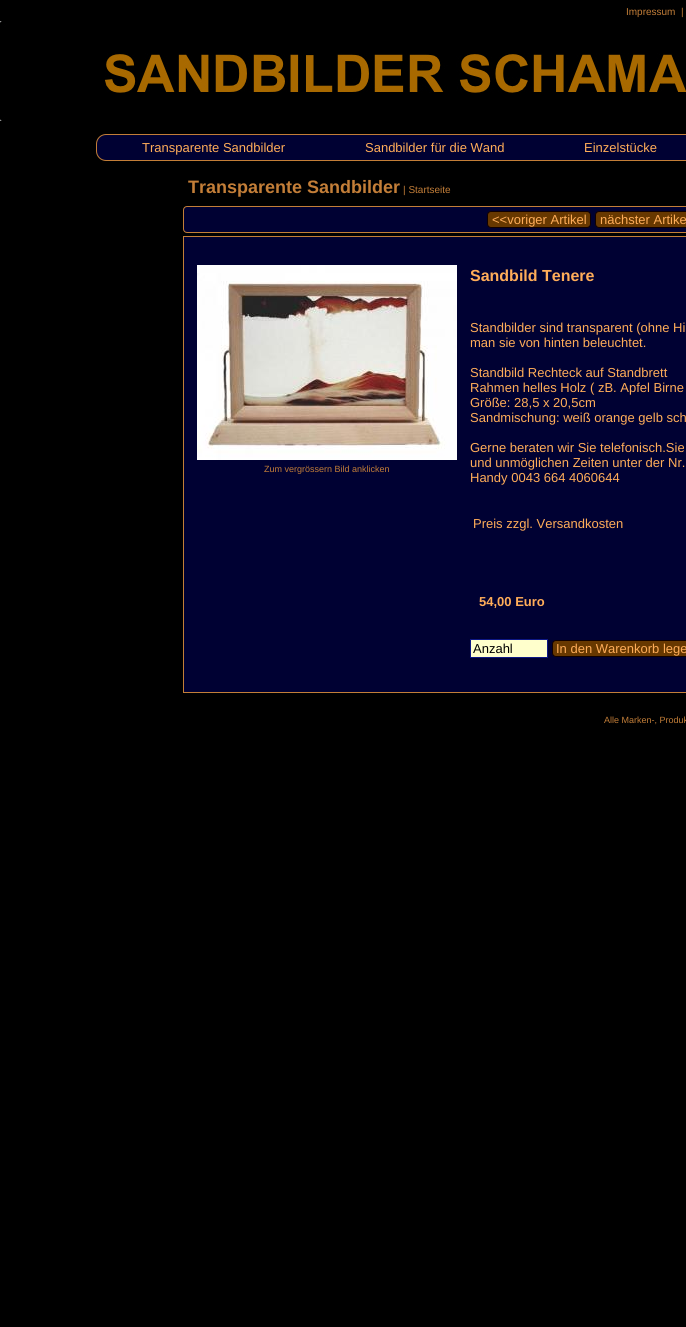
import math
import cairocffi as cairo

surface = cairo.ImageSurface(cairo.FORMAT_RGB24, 686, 1327)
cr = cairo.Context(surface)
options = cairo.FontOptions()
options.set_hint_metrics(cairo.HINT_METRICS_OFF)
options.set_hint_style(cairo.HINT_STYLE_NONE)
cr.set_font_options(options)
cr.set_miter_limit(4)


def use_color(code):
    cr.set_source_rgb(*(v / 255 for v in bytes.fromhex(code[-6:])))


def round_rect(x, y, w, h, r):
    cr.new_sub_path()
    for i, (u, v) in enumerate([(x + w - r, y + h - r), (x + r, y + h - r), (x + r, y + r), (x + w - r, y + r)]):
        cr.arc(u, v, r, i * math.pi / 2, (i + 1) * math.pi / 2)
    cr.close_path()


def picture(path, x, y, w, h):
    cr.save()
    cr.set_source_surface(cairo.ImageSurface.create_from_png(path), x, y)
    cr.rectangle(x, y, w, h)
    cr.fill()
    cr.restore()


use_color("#000000")
cr.paint()
cr.select_font_face("Liberation Sans")
cr.set_font_size(10)
use_color("#c37e38")
cr.move_to(626, 15)
cr.show_text("Impressum")
cr.move_to(681, 15)
cr.show_text("|")
picture("img1.png", 0, 21, 686, 100)
use_color("#000133")
round_rect(96.5, 134.5, 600, 26, 9.5)
cr.fill_preserve()
use_color("#c37e38")
cr.set_line_width(1)
cr.stroke()
cr.set_font_size(13)
use_color("#ffad59")
cr.move_to(142, 152)
cr.show_text("Transparente Sandbilder")
cr.move_to(365, 152)
cr.show_text("Sandbilder für die Wand")
cr.move_to(584, 152)
cr.show_text("Einzelstücke")
cr.select_font_face("Liberation Sans", cairo.FONT_SLANT_NORMAL, cairo.FONT_WEIGHT_BOLD)
cr.set_font_size(18)
use_color("#c37e38")
cr.move_to(188, 193)
cr.show_text("Transparente Sandbilder")
cr.select_font_face("Liberation Sans")
cr.set_font_size(10)
cr.move_to(403, 193)
cr.show_text("| Startseite")
use_color("#000133")
round_rect(183.5, 206.5, 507, 26, 3.5)
cr.fill_preserve()
use_color("#c37e38")
cr.stroke()
use_color("#673800")
round_rect(487.5, 211.5, 103, 16, 3.5)
cr.fill_preserve()
use_color("#110000")
cr.stroke()
cr.set_font_size(13)
use_color("#ffad59")
cr.move_to(492, 224)
cr.show_text("<<voriger Artikel")
use_color("#673800")
round_rect(595.5, 211.5, 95, 16, 3.5)
cr.fill_preserve()
use_color("#110000")
cr.stroke()
use_color("#ffad59")
cr.move_to(600, 224)
cr.show_text("nächster Artike")
use_color("#000133")
cr.rectangle(183.5, 236.5, 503, 456)
cr.fill_preserve()
use_color("#c37e38")
cr.stroke()
picture("img2.png", 197, 265, 260, 195)
cr.set_font_size(9)
cr.move_to(264, 472)
cr.show_text("Zum vergrössern Bild anklicken")
cr.select_font_face("Liberation Sans", cairo.FONT_SLANT_NORMAL, cairo.FONT_WEIGHT_BOLD)
cr.set_font_size(16)
use_color("#ffad59")
cr.move_to(470, 281)
cr.show_text("Sandbild Tenere")
cr.select_font_face("Liberation Sans")
cr.set_font_size(13)
cr.move_to(470, 332)
cr.show_text("Standbilder sind transparent (ohne Hi")
cr.move_to(470, 347)
cr.show_text("man sie von hinten beleuchtet.")
cr.move_to(470, 377)
cr.show_text("Standbild Rechteck auf Standbrett")
cr.move_to(470, 392)
cr.show_text("Rahmen helles Holz ( zB. Apfel Birne")
cr.move_to(470, 407)
cr.show_text("Größe: 28,5 x 20,5cm")
cr.move_to(470, 422)
cr.show_text("Sandmischung: weiß orange gelb sch")
cr.move_to(470, 452)
cr.show_text("Gerne beraten wir Sie telefonisch.Sie")
cr.move_to(470, 467)
cr.show_text("und unmöglichen Zeiten unter der Nr.")
cr.move_to(470, 482)
cr.show_text("Handy 0043 664 4060644")
cr.move_to(473, 528)
cr.show_text("Preis zzgl. Versandkosten")
cr.select_font_face("Liberation Sans", cairo.FONT_SLANT_NORMAL, cairo.FONT_WEIGHT_BOLD)
cr.move_to(479, 606)
cr.show_text("54,00 Euro")
use_color("#ffffcc")
cr.rectangle(470.5, 639.5, 77, 18)
cr.fill_preserve()
use_color("#0d1784")
cr.stroke()
cr.select_font_face("Liberation Sans")
use_color("#000000")
cr.move_to(473, 653)
cr.show_text("Anzahl")
use_color("#673800")
round_rect(552.5, 640.5, 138, 16, 3.5)
cr.fill_preserve()
use_color("#110000")
cr.stroke()
use_color("#ffad59")
cr.move_to(556, 653)
cr.show_text("In den Warenkorb lege")
cr.set_font_size(9)
use_color("#c37e38")
cr.move_to(604, 723)
cr.show_text("Alle Marken-, Produk")
surface.write_to_png("result.png")
